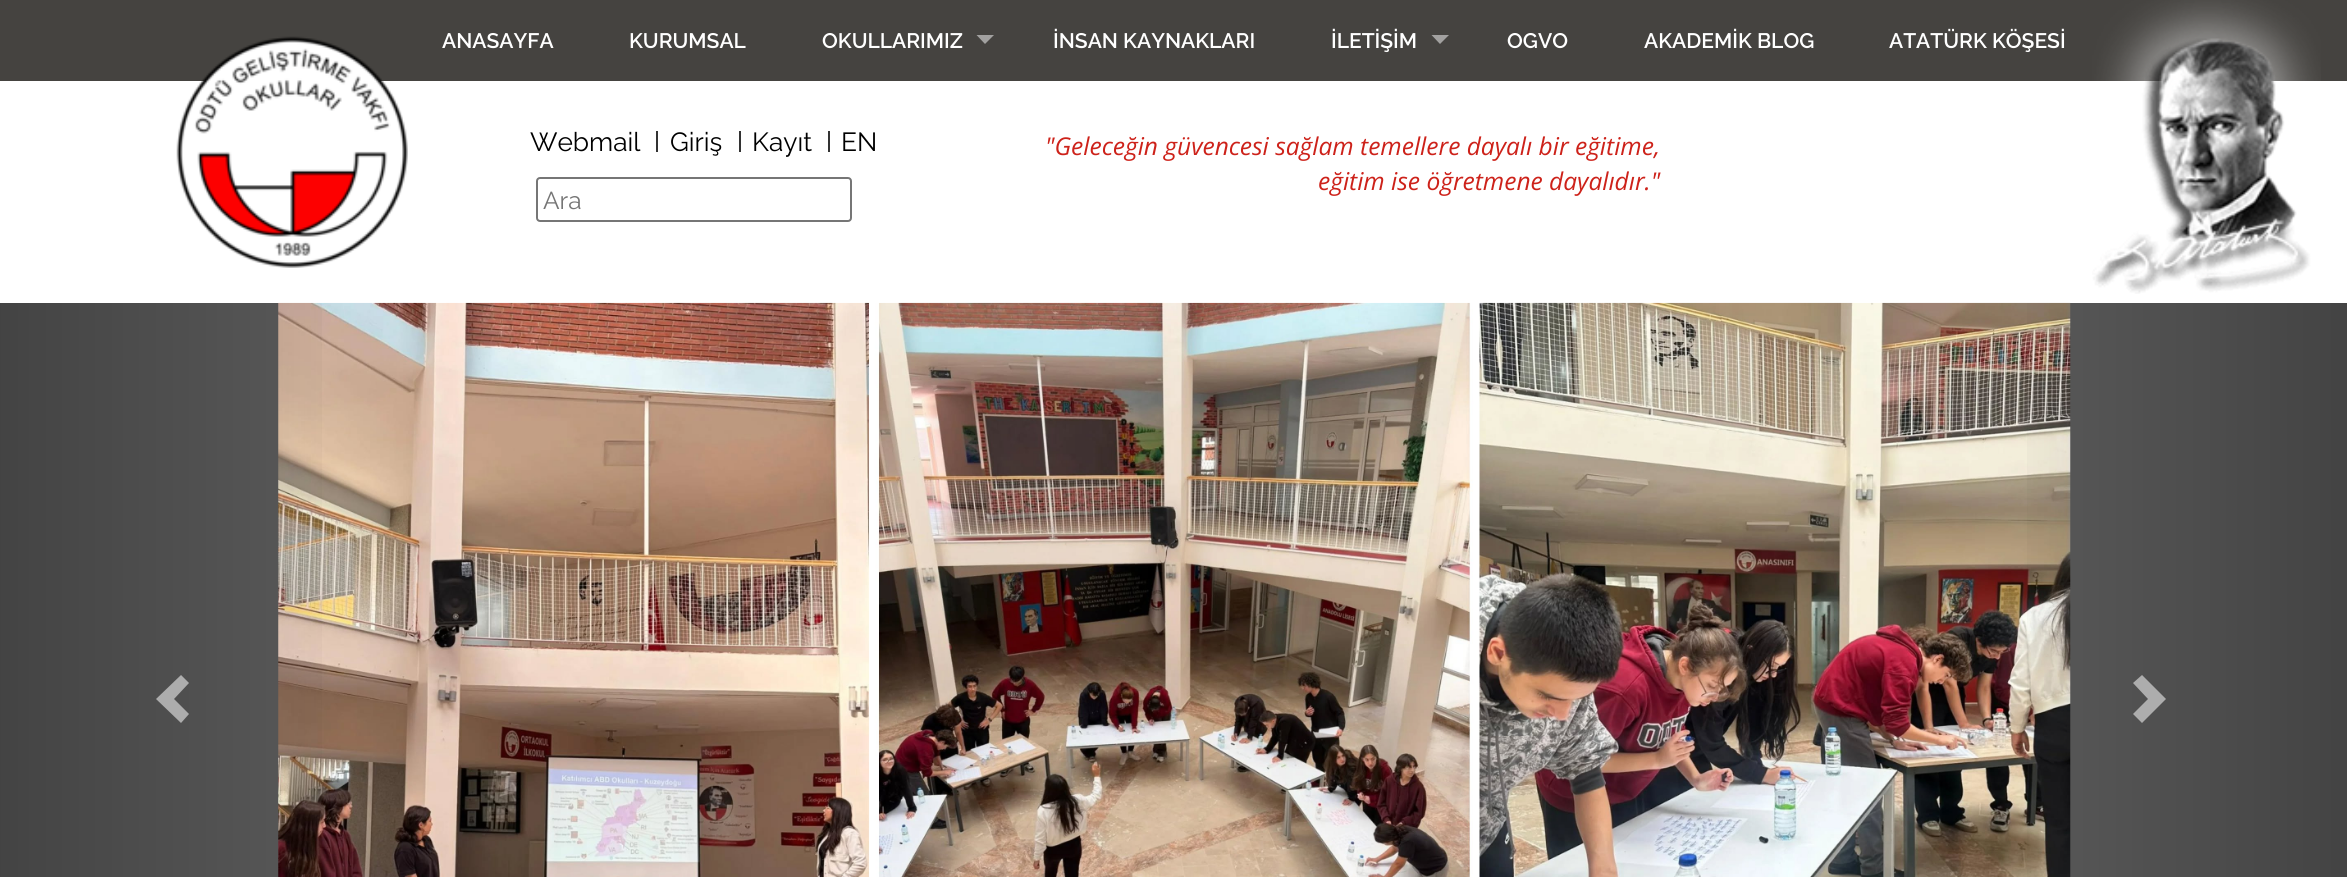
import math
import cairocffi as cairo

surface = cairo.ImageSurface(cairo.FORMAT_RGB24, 2347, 877)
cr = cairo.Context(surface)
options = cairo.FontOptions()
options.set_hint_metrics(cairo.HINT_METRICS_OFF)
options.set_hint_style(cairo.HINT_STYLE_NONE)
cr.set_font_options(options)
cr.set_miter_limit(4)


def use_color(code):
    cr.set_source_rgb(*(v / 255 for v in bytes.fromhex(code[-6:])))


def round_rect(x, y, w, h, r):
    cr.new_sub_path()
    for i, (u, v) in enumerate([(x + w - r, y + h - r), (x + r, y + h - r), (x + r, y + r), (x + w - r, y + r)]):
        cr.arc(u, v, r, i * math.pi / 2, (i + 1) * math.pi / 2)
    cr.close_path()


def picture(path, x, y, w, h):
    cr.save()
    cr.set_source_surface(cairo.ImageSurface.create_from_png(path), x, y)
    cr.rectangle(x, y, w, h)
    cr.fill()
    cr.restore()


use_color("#ffffff")
cr.paint()
use_color("#454340")
cr.rectangle(0, 0, 2347, 81)
cr.fill()
cr.select_font_face("Raleway SemiBold")
cr.set_font_size(21)
use_color("#ffffff")
cr.move_to(442, 48)
cr.show_text("ANASAYFA")
cr.move_to(629, 48)
cr.show_text("KURUMSAL")
cr.move_to(822, 48)
cr.show_text("OKULLARIMIZ")
use_color("#a2a1a0")
cr.new_path()
cr.move_to(976.5, 35)
cr.line_to(994, 35)
cr.line_to(985, 44)
cr.close_path()
cr.fill()
use_color("#ffffff")
cr.move_to(1053, 48)
cr.show_text("İNSAN KAYNAKLARI")
cr.move_to(1331, 48)
cr.show_text("İLETİŞİM")
use_color("#a2a1a0")
cr.new_path()
cr.move_to(1431.5, 35)
cr.line_to(1449, 35)
cr.line_to(1440, 44)
cr.close_path()
cr.fill()
use_color("#ffffff")
cr.move_to(1507, 48)
cr.show_text("OGVO")
cr.move_to(1644, 48)
cr.show_text("AKADEMİK BLOG")
cr.move_to(1889, 48)
cr.show_text("ATATÜRK KÖŞESİ")
picture("img1.png", 176, 36, 232, 232)
cr.select_font_face("Raleway")
cr.set_font_size(26.25)
use_color("#000000")
cr.move_to(530, 151)
cr.show_text("Webmail")
use_color("#333333")
cr.rectangle(656, 131, 2, 21)
cr.fill()
use_color("#000000")
cr.move_to(670, 151)
cr.show_text("Giriş")
use_color("#333333")
cr.rectangle(739, 131, 2, 21)
cr.fill()
use_color("#000000")
cr.move_to(752, 151)
cr.show_text("Kayıt")
use_color("#333333")
cr.rectangle(828, 131, 2, 21)
cr.fill()
use_color("#000000")
cr.move_to(841, 151)
cr.show_text("EN")
round_rect(537, 178, 314, 43, 3)
use_color("#767676")
cr.stroke()
cr.set_font_size(24.5)
use_color("#757575")
cr.move_to(543, 209)
cr.show_text("Ara")
cr.select_font_face("Open Sans", cairo.FONT_SLANT_ITALIC)
use_color("#cd221a")
cr.move_to(1045, 155)
cr.show_text("\"Geleceğin güvencesi sağlam temellere dayalı bir eğitime,")
cr.move_to(1318, 190)
cr.show_text("eğitim ise öğretmene dayalıdır.\"")
picture("img2.png", 2092, 0, 229, 294)
use_color("#5a5a5a")
cr.rectangle(0, 303, 2347, 574)
cr.fill()
picture("img3.png", 278, 302, 1793, 575)
gradient = cairo.LinearGradient(0, 697, 352, 697)
gradient.add_color_stop_rgba(0, 0, 0, 0, 0.25)
gradient.add_color_stop_rgba(1, 0, 0, 0, 0)
cr.set_source(gradient)
cr.rectangle(0, 303, 322, 574)
cr.fill()
use_color("#adadad")
cr.new_path()
cr.move_to(189, 683)
cr.line_to(174, 699)
cr.line_to(189, 714)
cr.line_to(181, 723)
cr.line_to(156, 699)
cr.line_to(181, 675)
cr.close_path()
cr.fill()
gradient = cairo.LinearGradient(1997, 697, 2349, 697)
gradient.add_color_stop_rgba(0, 0, 0, 0, 0)
gradient.add_color_stop_rgba(1, 0, 0, 0, 0.25)
cr.set_source(gradient)
cr.rectangle(2027, 303, 320, 574)
cr.fill()
use_color("#adadad")
cr.new_path()
cr.move_to(2166, 699)
cr.line_to(2142, 723)
cr.line_to(2133, 714)
cr.line_to(2148, 699)
cr.line_to(2133, 683)
cr.line_to(2142, 675)
cr.close_path()
cr.fill()
surface.write_to_png("result.png")
